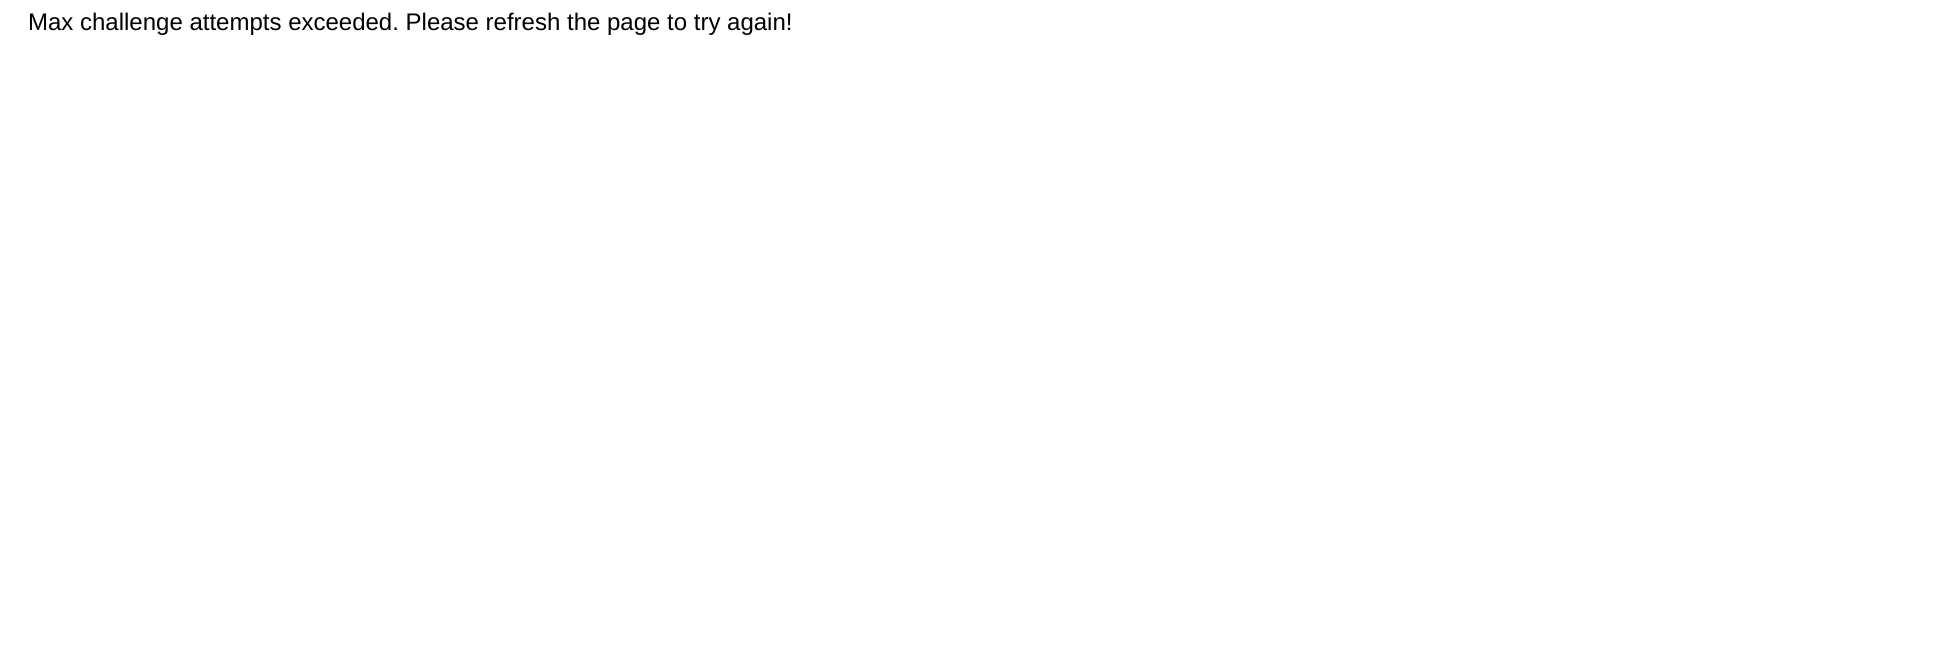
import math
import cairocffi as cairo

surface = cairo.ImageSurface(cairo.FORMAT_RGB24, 1948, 648)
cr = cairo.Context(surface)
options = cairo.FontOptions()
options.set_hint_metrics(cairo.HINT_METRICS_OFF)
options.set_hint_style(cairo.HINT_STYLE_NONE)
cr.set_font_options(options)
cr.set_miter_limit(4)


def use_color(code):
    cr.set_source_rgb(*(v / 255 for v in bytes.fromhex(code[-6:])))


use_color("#ffffff")
cr.paint()
cr.select_font_face("Liberation Sans")
cr.set_font_size(24)
use_color("#000000")
cr.move_to(28, 30)
cr.show_text("Max challenge attempts exceeded. Please refresh the page to try again!")
surface.write_to_png("result.png")
